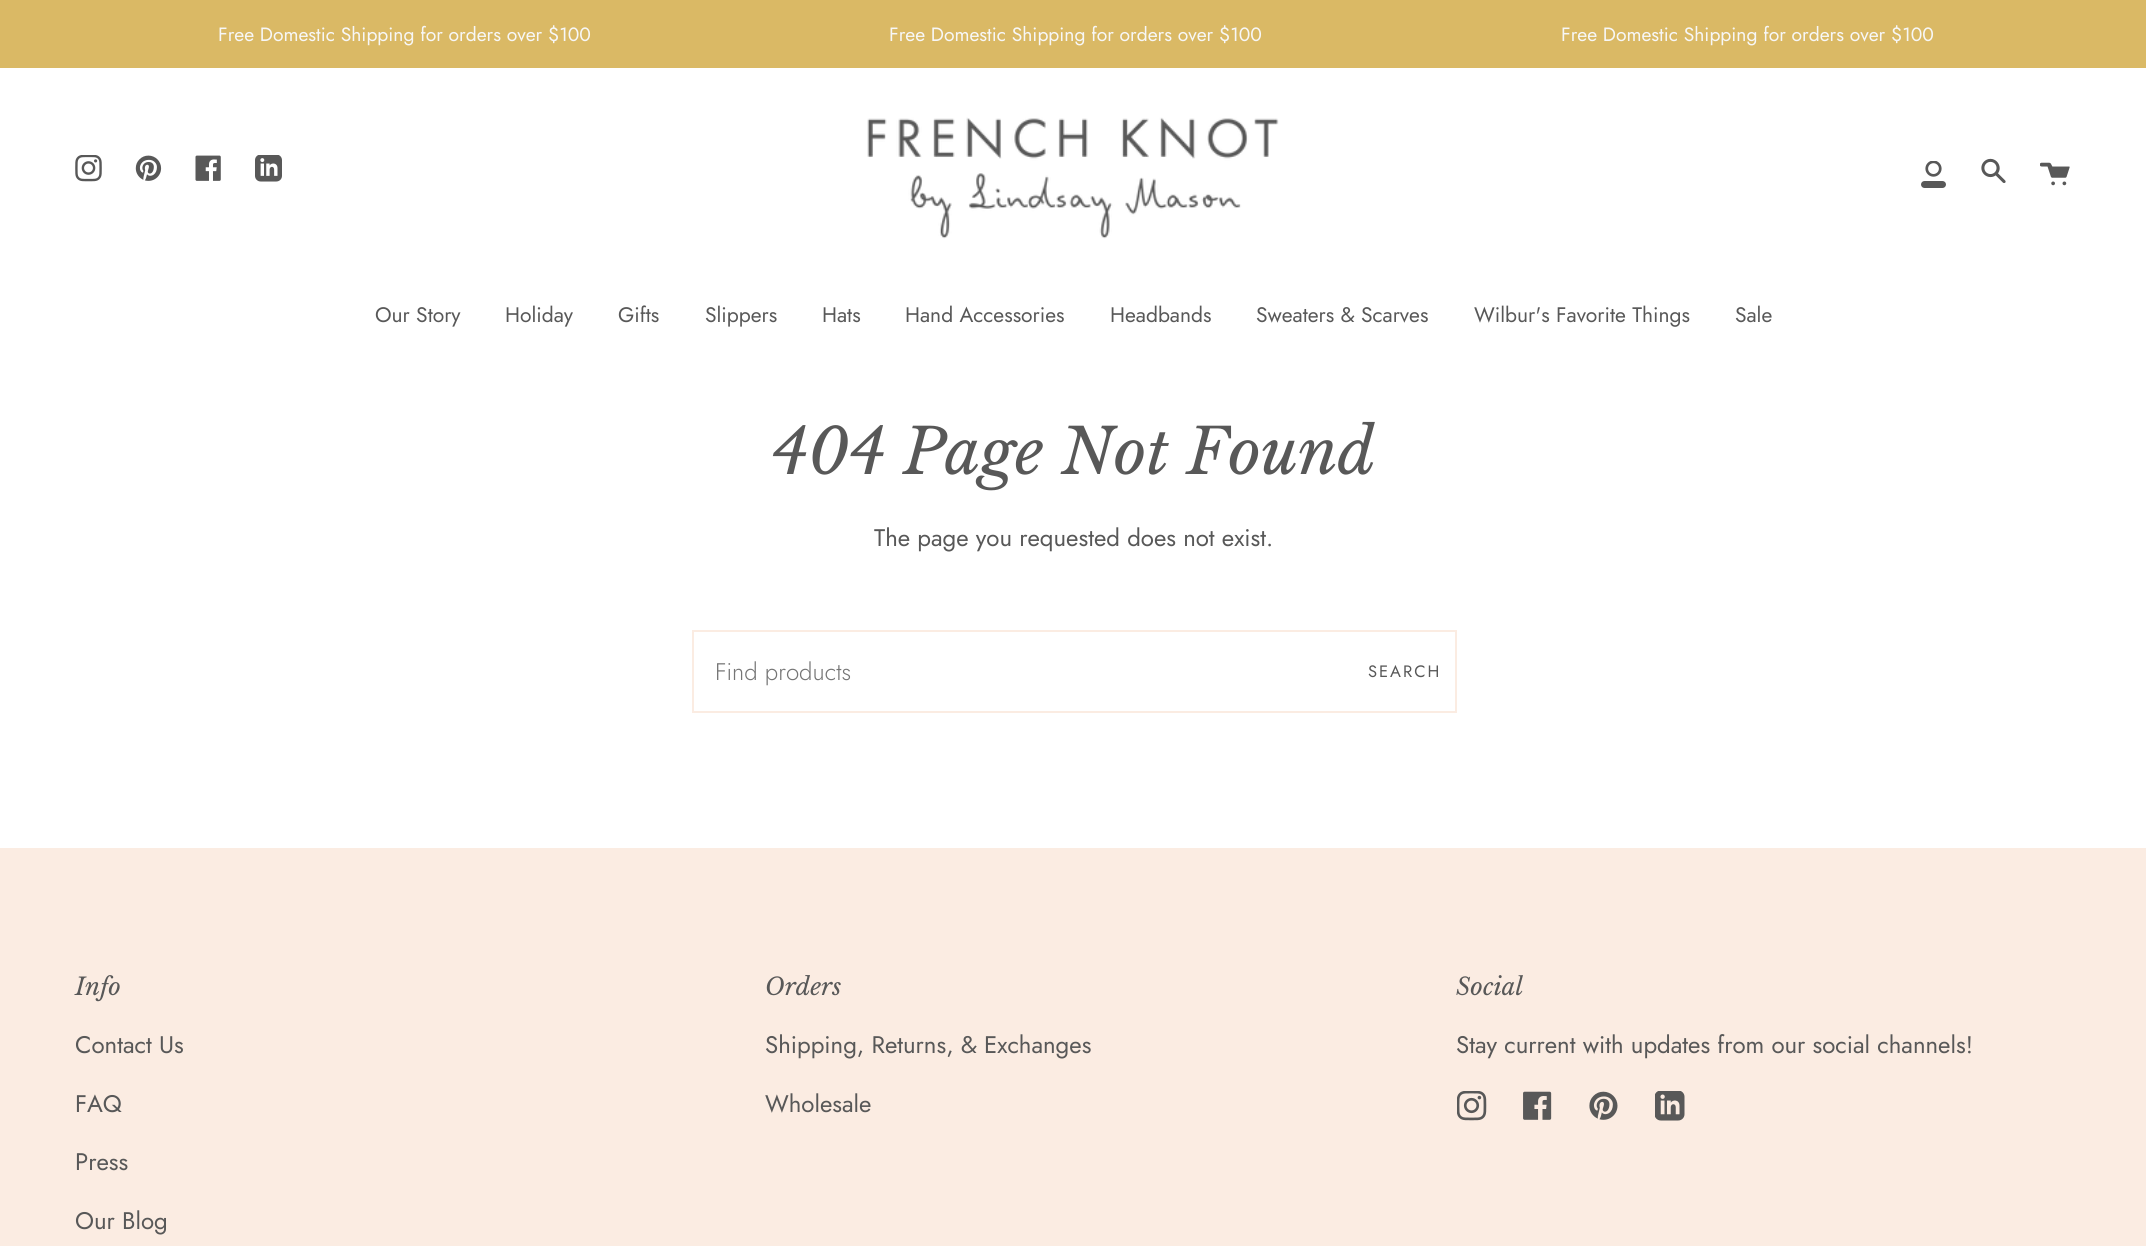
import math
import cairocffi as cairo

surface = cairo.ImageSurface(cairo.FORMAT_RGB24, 2146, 1246)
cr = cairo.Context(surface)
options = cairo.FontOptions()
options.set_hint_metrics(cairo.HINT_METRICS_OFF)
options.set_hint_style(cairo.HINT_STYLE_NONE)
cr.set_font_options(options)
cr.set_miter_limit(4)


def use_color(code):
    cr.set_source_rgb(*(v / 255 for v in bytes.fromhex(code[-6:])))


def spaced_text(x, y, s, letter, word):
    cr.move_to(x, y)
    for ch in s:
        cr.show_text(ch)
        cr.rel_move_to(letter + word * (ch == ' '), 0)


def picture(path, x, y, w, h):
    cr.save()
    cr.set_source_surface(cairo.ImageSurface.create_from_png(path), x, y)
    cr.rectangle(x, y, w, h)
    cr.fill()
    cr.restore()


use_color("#ffffff")
cr.paint()
use_color("#dab965")
cr.rectangle(0, 0, 2146, 68)
cr.fill()
cr.select_font_face("Jost")
cr.set_font_size(19.25)
use_color("#f7f7f7")
cr.move_to(218, 41)
cr.show_text("Free Domestic Shipping for orders over $100")
cr.move_to(889, 41)
cr.show_text("Free Domestic Shipping for orders over $100")
cr.move_to(1561, 41)
cr.show_text("Free Domestic Shipping for orders over $100")
picture("img1.png", 75, 155, 27, 27)
picture("img2.png", 135, 155, 27, 26)
picture("img3.png", 195, 155, 26, 26)
picture("img4.png", 255, 155, 27, 27)
picture("img5.png", 867, 117, 412, 122)
picture("img6.png", 1921, 161, 25, 27)
picture("img7.png", 1981, 158, 25, 25)
picture("img8.png", 2040, 162, 30, 24)
cr.set_font_size(21)
use_color("#585858")
cr.move_to(375, 322)
cr.show_text("Our Story")
cr.move_to(505, 322)
cr.show_text("Holiday")
cr.move_to(618, 322)
cr.show_text("Gifts")
cr.move_to(705, 322)
cr.show_text("Slippers")
cr.move_to(822, 322)
cr.show_text("Hats")
cr.move_to(905, 322)
cr.show_text("Hand Accessories")
cr.move_to(1110, 322)
cr.show_text("Headbands")
cr.move_to(1256, 322)
cr.show_text("Sweaters & Scarves")
cr.move_to(1474, 322)
cr.show_text("Wilbur's Favorite Things")
cr.move_to(1735, 322)
cr.show_text("Sale")
cr.select_font_face("Libre Baskerville", cairo.FONT_SLANT_ITALIC)
cr.set_font_size(62.75)
cr.move_to(772, 474)
cr.show_text("404 Page Not Found")
cr.select_font_face("Jost")
cr.set_font_size(24)
cr.move_to(874, 546)
cr.show_text("The page you requested does not exist.")
cr.rectangle(693, 631, 763, 81)
use_color("#fbece2")
cr.stroke()
cr.select_font_face("Jost Light")
use_color("#757575")
cr.move_to(715, 680)
cr.show_text("Find products")
cr.select_font_face("Jost")
cr.set_font_size(16.5)
use_color("#585858")
spaced_text(1368, 677, "SEARCH", 2, 0)
use_color("#fbece2")
cr.rectangle(0, 848, 2146, 398)
cr.fill()
cr.select_font_face("Libre Baskerville", cairo.FONT_SLANT_ITALIC)
cr.set_font_size(24)
use_color("#585858")
cr.move_to(75, 995)
cr.show_text("Info")
cr.select_font_face("Jost")
cr.move_to(75, 1053)
cr.show_text("Contact Us")
cr.move_to(75, 1112)
cr.show_text("FAQ")
cr.move_to(75, 1170)
cr.show_text("Press")
cr.move_to(75, 1229)
cr.show_text("Our Blog")
cr.select_font_face("Libre Baskerville", cairo.FONT_SLANT_ITALIC)
cr.move_to(765, 995)
cr.show_text("Orders")
cr.select_font_face("Jost")
cr.move_to(765, 1053)
cr.show_text("Shipping, Returns, & Exchanges")
cr.move_to(765, 1112)
cr.show_text("Wholesale")
cr.select_font_face("Libre Baskerville", cairo.FONT_SLANT_ITALIC)
cr.move_to(1456, 995)
cr.show_text("Social")
cr.select_font_face("Jost")
cr.move_to(1456, 1053)
cr.show_text("Stay current with updates from our social channels!")
picture("img9.png", 1457, 1091, 30, 30)
picture("img10.png", 1523, 1091, 29, 29)
picture("img11.png", 1589, 1091, 29, 29)
picture("img12.png", 1655, 1091, 30, 30)
surface.write_to_png("result.png")
